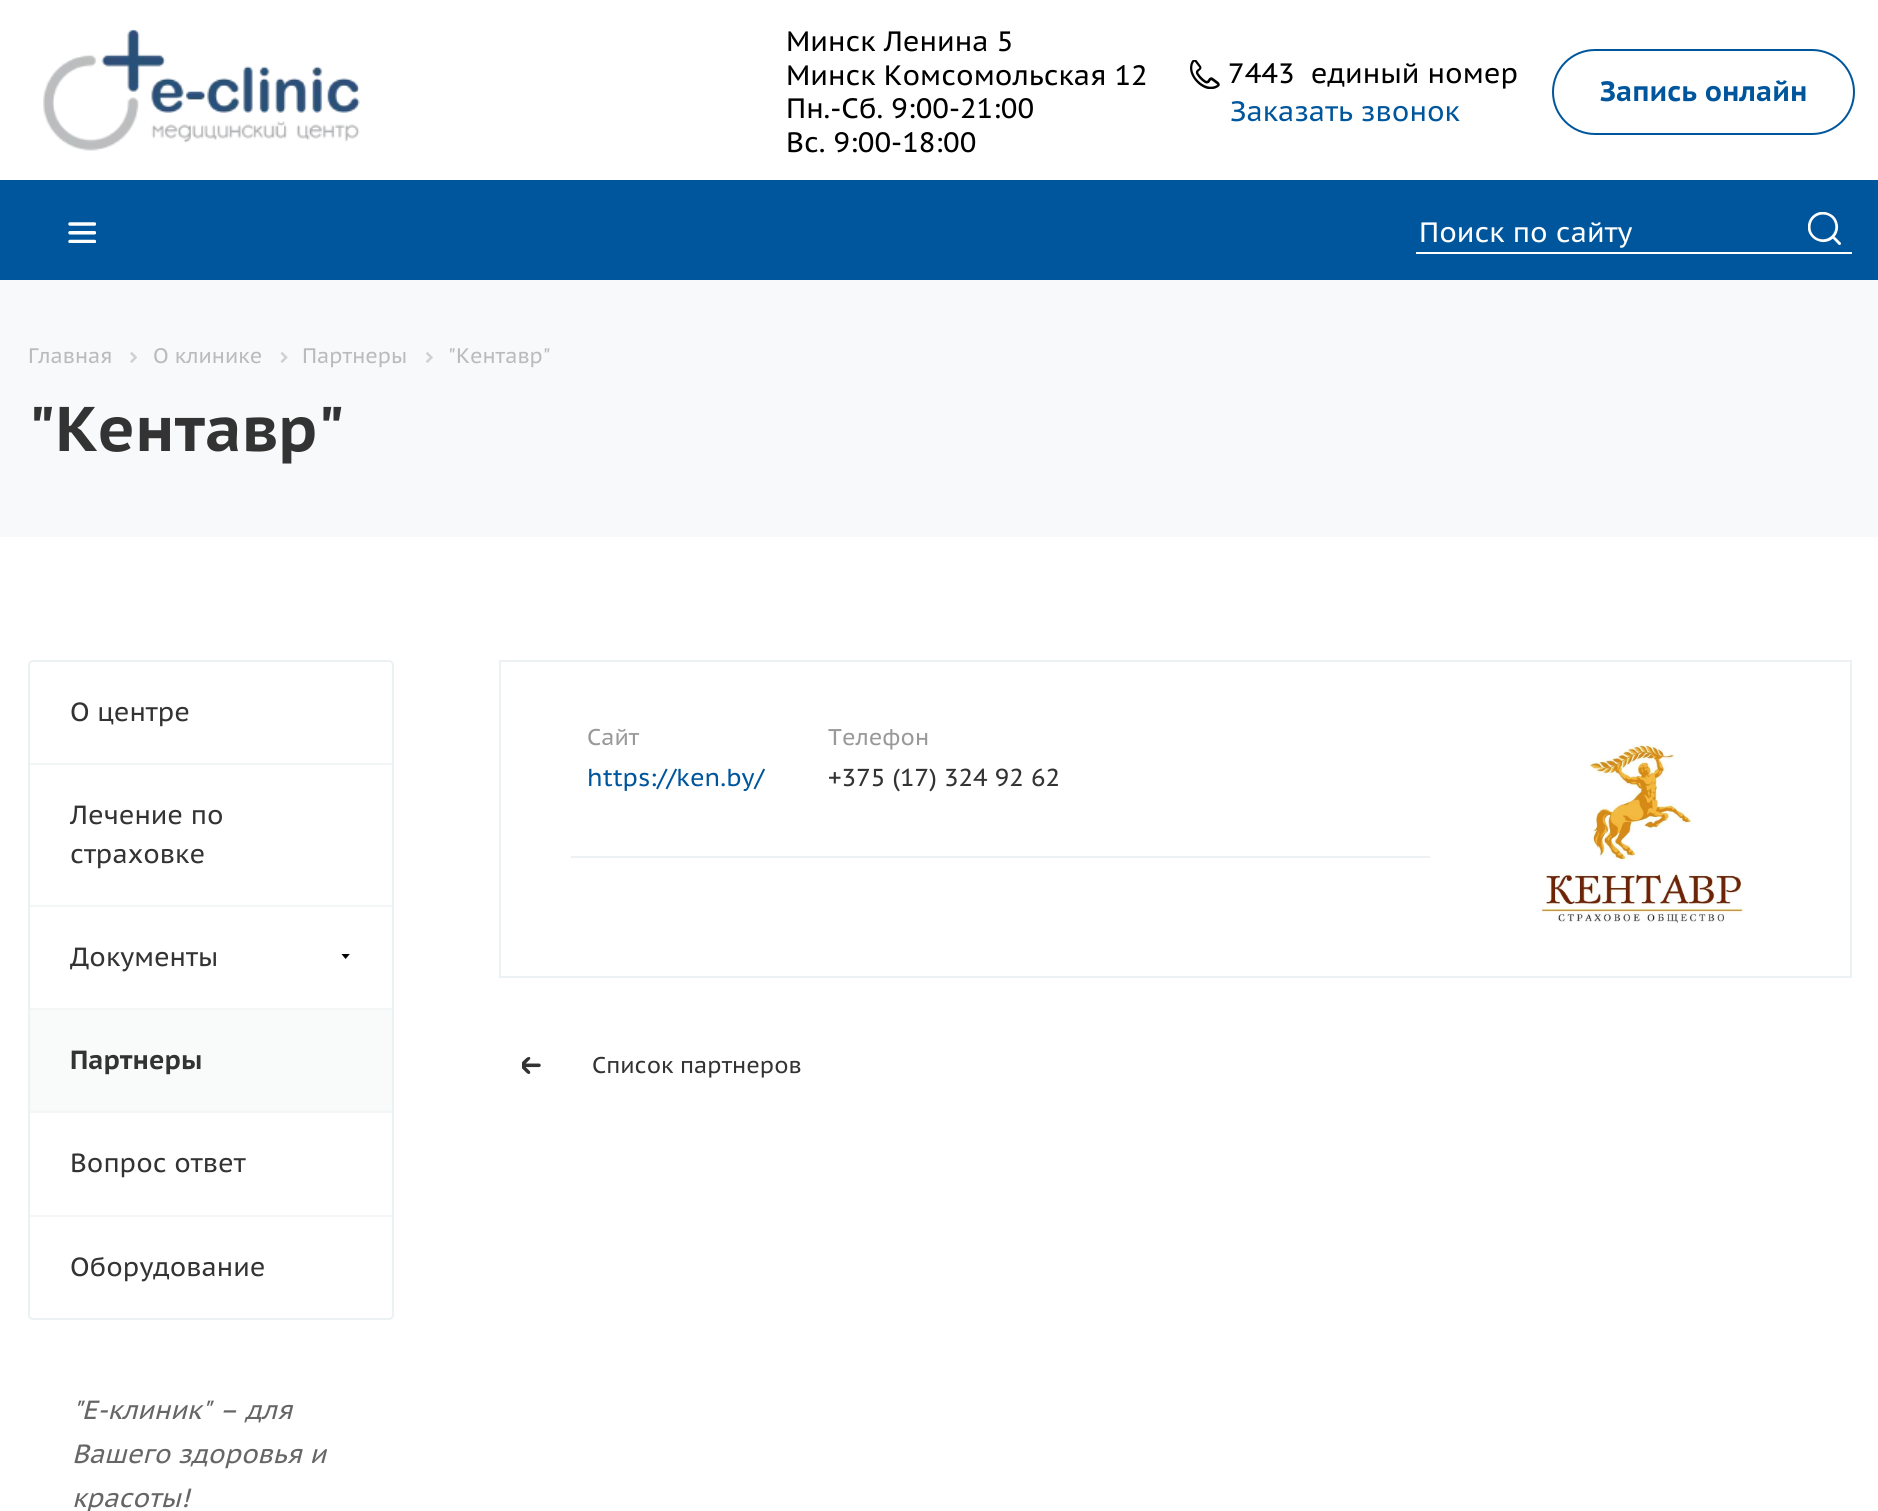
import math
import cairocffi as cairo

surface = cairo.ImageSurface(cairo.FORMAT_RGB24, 1878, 1511)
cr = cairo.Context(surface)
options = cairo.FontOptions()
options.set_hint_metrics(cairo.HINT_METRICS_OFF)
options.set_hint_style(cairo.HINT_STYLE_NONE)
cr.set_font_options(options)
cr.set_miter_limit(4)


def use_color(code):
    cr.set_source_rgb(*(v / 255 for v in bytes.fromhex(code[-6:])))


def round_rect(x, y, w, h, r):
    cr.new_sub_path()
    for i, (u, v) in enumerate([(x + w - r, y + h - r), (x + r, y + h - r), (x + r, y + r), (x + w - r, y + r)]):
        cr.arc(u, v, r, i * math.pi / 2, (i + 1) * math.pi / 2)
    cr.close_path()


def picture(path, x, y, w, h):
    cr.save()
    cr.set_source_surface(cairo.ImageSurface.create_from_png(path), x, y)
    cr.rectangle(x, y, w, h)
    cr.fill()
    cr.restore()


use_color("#ffffff")
cr.paint()
picture("img1.png", 43, 29, 317, 122)
cr.select_font_face("PT Sans Caption")
cr.set_font_size(28)
use_color("#000000")
cr.move_to(786, 51)
cr.show_text("Минск Ленина 5")
cr.move_to(786, 85)
cr.show_text("Минск Комсомольская 12")
cr.move_to(786, 118)
cr.show_text("Пн.-Сб. 9:00-21:00")
cr.move_to(786, 152)
cr.show_text("Вс. 9:00-18:00")
picture("img2.png", 1190, 60, 30, 29)
cr.move_to(1228, 83)
cr.show_text("7443  единый номер")
use_color("#00569c")
cr.move_to(1230, 121)
cr.show_text("Заказать звонок")
round_rect(1553, 50, 301, 84, 42)
cr.stroke()
cr.select_font_face("PT Sans Caption", cairo.FONT_SLANT_NORMAL, cairo.FONT_WEIGHT_BOLD)
cr.move_to(1600, 101)
cr.show_text("Запись онлайн")
cr.rectangle(0, 180, 1878, 100)
cr.fill()
picture("img3.png", 68, 222, 28, 21)
use_color("#ffffff")
cr.rectangle(1416, 252, 436, 2)
cr.fill()
cr.select_font_face("PT Sans Caption")
cr.move_to(1419, 242)
cr.show_text("Поиск по сайту")
picture("img4.png", 1808, 212, 33, 33)
use_color("#f7f9fa")
cr.rectangle(0, 280, 1878, 257)
cr.fill()
cr.set_font_size(21)
use_color("#bbbbbb")
cr.move_to(28, 363)
cr.show_text("Главная")
picture("img5.png", 130, 352, 7, 11)
cr.move_to(153, 363)
cr.show_text("О клинике")
picture("img6.png", 280, 352, 8, 11)
cr.move_to(302, 363)
cr.show_text("Партнеры")
picture("img7.png", 426, 352, 7, 11)
cr.move_to(448, 363)
cr.show_text("\"Кентавр\"")
cr.select_font_face("PT Sans Caption", cairo.FONT_SLANT_NORMAL, cairo.FONT_WEIGHT_BOLD)
cr.set_font_size(63)
use_color("#333333")
cr.move_to(28, 451)
cr.show_text("\"Кентавр\"")
round_rect(29, 661, 364, 658, 4)
use_color("#ecf2f4")
cr.stroke()
cr.select_font_face("PT Sans Caption")
cr.set_font_size(26.25)
use_color("#333333")
cr.move_to(70, 721)
cr.show_text("О центре")
use_color("#f2f6f7")
cr.rectangle(30, 763, 362, 2)
cr.fill()
use_color("#333333")
cr.move_to(70, 824)
cr.show_text("Лечение по")
cr.move_to(70, 863)
cr.show_text("страховке")
use_color("#f2f6f7")
cr.rectangle(30, 905, 362, 2)
cr.fill()
use_color("#333333")
cr.move_to(70, 966)
cr.show_text("Документы")
picture("img8.png", 341, 954, 9, 5)
use_color("#f9fbfb")
cr.rectangle(30, 1010, 362, 101)
cr.fill()
use_color("#f2f6f7")
cr.rectangle(30, 1008, 362, 2)
cr.fill()
cr.select_font_face("PT Sans Caption", cairo.FONT_SLANT_NORMAL, cairo.FONT_WEIGHT_BOLD)
use_color("#333333")
cr.move_to(70, 1069)
cr.show_text("Партнеры")
use_color("#f2f6f7")
cr.rectangle(30, 1111, 362, 2)
cr.fill()
cr.select_font_face("PT Sans Caption")
use_color("#333333")
cr.move_to(70, 1172)
cr.show_text("Вопрос ответ")
use_color("#f2f6f7")
cr.rectangle(30, 1215, 362, 2)
cr.fill()
use_color("#333333")
cr.move_to(70, 1276)
cr.show_text("Оборудование")
cr.select_font_face("PT Sans Caption", cairo.FONT_SLANT_ITALIC)
use_color("#666666")
cr.move_to(72, 1419)
cr.show_text("\"Е-клиник\" – для")
cr.move_to(72, 1463)
cr.show_text("Вашего здоровья и")
cr.move_to(72, 1507)
cr.show_text("красоты!")
cr.rectangle(500, 661, 1351, 316)
use_color("#ecf2f4")
cr.stroke()
cr.rectangle(571, 856, 859, 2)
cr.fill()
cr.select_font_face("PT Sans Caption")
cr.set_font_size(22.75)
use_color("#999999")
cr.move_to(587, 745)
cr.show_text("Сайт")
cr.set_font_size(24.5)
use_color("#00569c")
cr.move_to(587, 786)
cr.show_text("https://ken.by/")
cr.set_font_size(22.75)
use_color("#999999")
cr.move_to(828, 745)
cr.show_text("Телефон")
cr.set_font_size(24.5)
use_color("#333333")
cr.move_to(828, 786)
cr.show_text("+375 (17) 324 92 62")
picture("img9.png", 1540, 743, 204, 181)
picture("img10.png", 522, 1057, 19, 17)
cr.set_font_size(22.75)
cr.move_to(592, 1073)
cr.show_text("Список партнеров")
surface.write_to_png("result.png")
